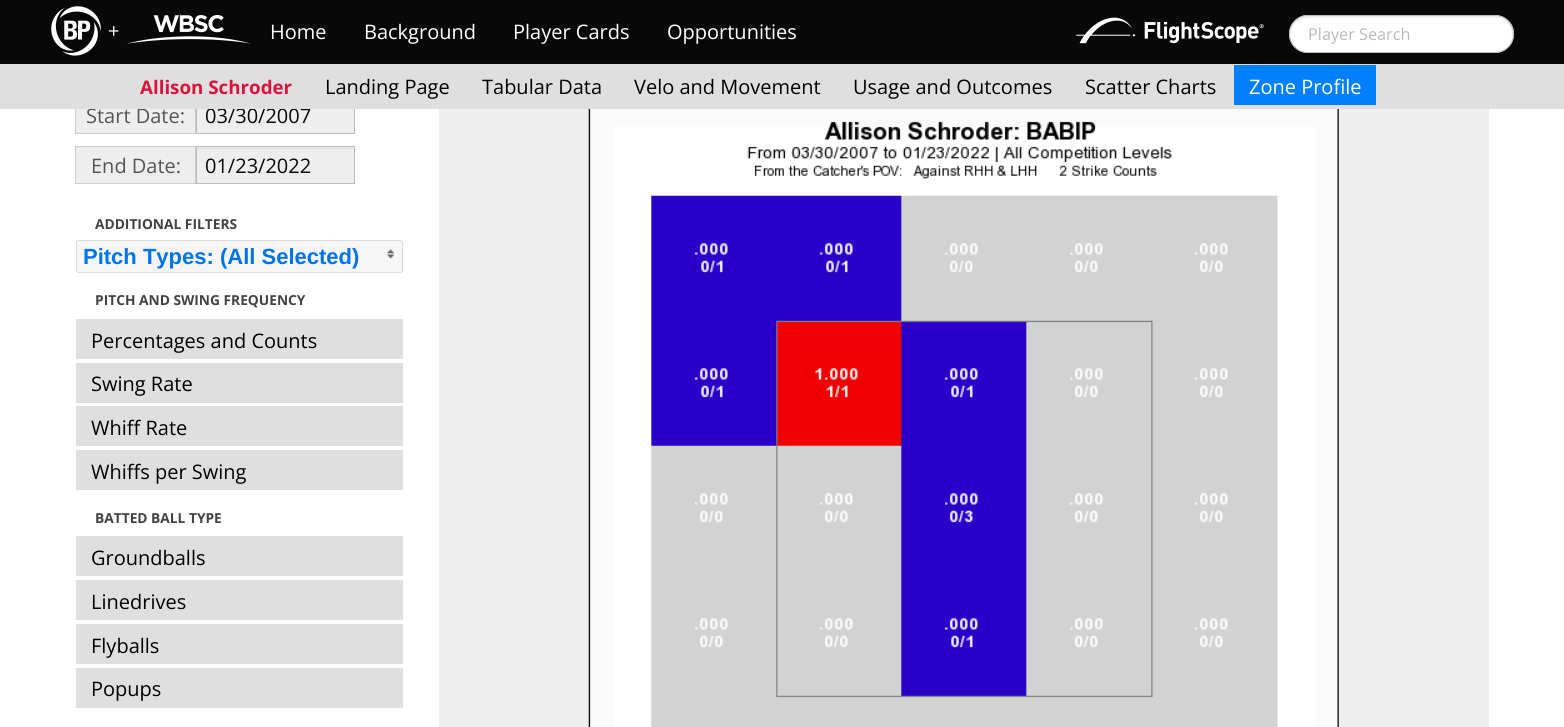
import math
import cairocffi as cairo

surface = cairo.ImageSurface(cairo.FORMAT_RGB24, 1564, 727)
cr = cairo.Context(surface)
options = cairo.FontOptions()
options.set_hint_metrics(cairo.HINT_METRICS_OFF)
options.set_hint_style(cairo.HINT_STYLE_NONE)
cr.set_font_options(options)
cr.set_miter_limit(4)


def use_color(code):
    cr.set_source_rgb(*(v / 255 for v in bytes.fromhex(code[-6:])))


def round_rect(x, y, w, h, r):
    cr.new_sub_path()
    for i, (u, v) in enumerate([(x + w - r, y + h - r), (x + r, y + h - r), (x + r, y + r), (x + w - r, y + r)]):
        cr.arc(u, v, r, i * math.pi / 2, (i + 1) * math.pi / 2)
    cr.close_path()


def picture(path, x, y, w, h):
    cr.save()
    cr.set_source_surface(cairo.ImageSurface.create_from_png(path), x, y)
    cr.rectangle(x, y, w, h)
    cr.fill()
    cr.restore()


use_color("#ffffff")
cr.paint()
use_color("#080808")
cr.rectangle(0, 0, 1564, 64)
cr.fill()
picture("img1.png", 51, 6, 50, 50)
cr.select_font_face("Open Sans")
cr.set_font_size(20)
use_color("#ffffff")
cr.move_to(108, 38)
cr.show_text("+")
picture("img2.png", 127, 15, 124, 29)
cr.move_to(270, 39)
cr.show_text("Home")
cr.move_to(364, 39)
cr.show_text("Background")
cr.move_to(513, 39)
cr.show_text("Player Cards")
cr.move_to(667, 39)
cr.show_text("Opportunities")
picture("img3.png", 1076, 17, 188, 27)
round_rect(1289, 15, 225, 38, 19)
cr.fill()
use_color("#ececec")
cr.new_path()
cr.move_to(1308, 18)
cr.line_to(1499, 18)
cr.curve_to(1510, 20, 1514, 32, 1511, 41)
cr.curve_to(1512, 39, 1513, 36, 1513, 34)
cr.curve_to(1513, 24, 1505, 16, 1496, 16)
cr.line_to(1308, 16)
cr.curve_to(1298, 16, 1290, 24, 1290, 34)
cr.line_to(1291, 39)
cr.curve_to(1289, 29, 1295, 18, 1308, 18)
cr.close_path()
cr.fill()
round_rect(1289.5, 15.5, 224, 37, 18.5)
use_color("#bbbbbb")
cr.set_line_width(1)
cr.stroke()
cr.set_font_size(16.25)
cr.move_to(1308, 40)
cr.show_text("Player Search")
use_color("#eeeeee")
cr.rectangle(76, 109, 119, 24)
cr.fill()
cr.rectangle(75.5, 96.5, 120, 37)
use_color("#cccccc")
cr.stroke()
cr.set_font_size(20)
use_color("#555555")
cr.move_to(86, 123)
cr.show_text("Start Date:")
use_color("#eeeeee")
cr.rectangle(197, 109, 157, 24)
cr.fill()
cr.rectangle(196.5, 96.5, 158, 37)
use_color("#bbbbbb")
cr.stroke()
use_color("#080808")
cr.move_to(205, 123)
cr.show_text("03/30/2007")
use_color("#dfdfdf")
cr.rectangle(0, 64, 1564, 45)
cr.fill()
cr.select_font_face("Open Sans", cairo.FONT_SLANT_NORMAL, cairo.FONT_WEIGHT_BOLD)
cr.set_font_size(18.75)
use_color("#dc143c")
cr.move_to(140, 94)
cr.show_text("Allison Schroder")
cr.select_font_face("Open Sans")
cr.set_font_size(20)
use_color("#000000")
cr.move_to(325, 94)
cr.show_text("Landing Page")
cr.move_to(482, 94)
cr.show_text("Tabular Data")
cr.move_to(634, 94)
cr.show_text("Velo and Movement")
cr.move_to(853, 94)
cr.show_text("Usage and Outcomes")
cr.move_to(1085, 94)
cr.show_text("Scatter Charts")
use_color("#007fff")
cr.rectangle(1234, 65, 142, 40)
cr.fill()
use_color("#ffffff")
cr.move_to(1249, 94)
cr.show_text("Zone Profile")
use_color("#eeeeee")
cr.rectangle(75.5, 146.5, 120, 37)
cr.fill_preserve()
use_color("#cccccc")
cr.stroke()
use_color("#555555")
cr.move_to(91, 173)
cr.show_text("End Date:")
use_color("#eeeeee")
cr.rectangle(197, 147, 157, 36)
cr.fill()
use_color("#dcdcdc")
cr.rectangle(198, 148, 156, 1)
cr.fill()
cr.rectangle(196.5, 146.5, 158, 37)
use_color("#bbbbbb")
cr.stroke()
use_color("#080808")
cr.move_to(205, 173)
cr.show_text("01/23/2022")
cr.select_font_face("Open Sans", cairo.FONT_SLANT_NORMAL, cairo.FONT_WEIGHT_BOLD)
cr.set_font_size(13.75)
use_color("#424242")
cr.move_to(95, 229)
cr.show_text("ADDITIONAL FILTERS")
use_color("#f6f6f6")
round_rect(76.5, 240.5, 326, 32, 2)
cr.fill_preserve()
use_color("#dddddd")
cr.stroke()
cr.select_font_face("Liberation Sans", cairo.FONT_SLANT_NORMAL, cairo.FONT_WEIGHT_BOLD)
cr.set_font_size(22)
use_color("#0073ea")
cr.move_to(83, 264)
cr.show_text("Pitch Types: (All Selected)")
picture("img4.png", 387, 249, 7, 10)
cr.select_font_face("Open Sans", cairo.FONT_SLANT_NORMAL, cairo.FONT_WEIGHT_BOLD)
cr.set_font_size(13.75)
use_color("#424242")
cr.move_to(95, 305)
cr.show_text("PITCH AND SWING FREQUENCY")
use_color("#dfdfdf")
cr.rectangle(76, 319, 327, 40)
cr.fill()
cr.select_font_face("Open Sans")
cr.set_font_size(20)
use_color("#000000")
cr.move_to(91, 348)
cr.show_text("Percentages and Counts")
use_color("#dfdfdf")
cr.rectangle(76, 363, 327, 40)
cr.fill()
use_color("#000000")
cr.move_to(91, 391)
cr.show_text("Swing Rate")
use_color("#dfdfdf")
cr.rectangle(76, 406, 327, 40)
cr.fill()
use_color("#000000")
cr.move_to(91, 435)
cr.show_text("Whiff Rate")
use_color("#dfdfdf")
cr.rectangle(76, 450, 327, 40)
cr.fill()
use_color("#000000")
cr.move_to(91, 479)
cr.show_text("Whiffs per Swing")
cr.select_font_face("Open Sans", cairo.FONT_SLANT_NORMAL, cairo.FONT_WEIGHT_BOLD)
cr.set_font_size(13.75)
use_color("#424242")
cr.move_to(95, 523)
cr.show_text("BATTED BALL TYPE")
use_color("#dfdfdf")
cr.rectangle(76, 536, 327, 40)
cr.fill()
cr.select_font_face("Open Sans")
cr.set_font_size(20)
use_color("#000000")
cr.move_to(91, 565)
cr.show_text("Groundballs")
use_color("#dfdfdf")
cr.rectangle(76, 580, 327, 40)
cr.fill()
use_color("#000000")
cr.move_to(91, 609)
cr.show_text("Linedrives")
use_color("#dfdfdf")
cr.rectangle(76, 624, 327, 40)
cr.fill()
use_color("#000000")
cr.move_to(91, 653)
cr.show_text("Flyballs")
use_color("#dfdfdf")
cr.rectangle(76, 668, 327, 40)
cr.fill()
use_color("#000000")
cr.move_to(91, 696)
cr.show_text("Popups")
use_color("#eeeeee")
cr.rectangle(439, 109, 1050, 618)
cr.fill()
picture("img5.png", 588, 109, 751, 618)
surface.write_to_png("result.png")
